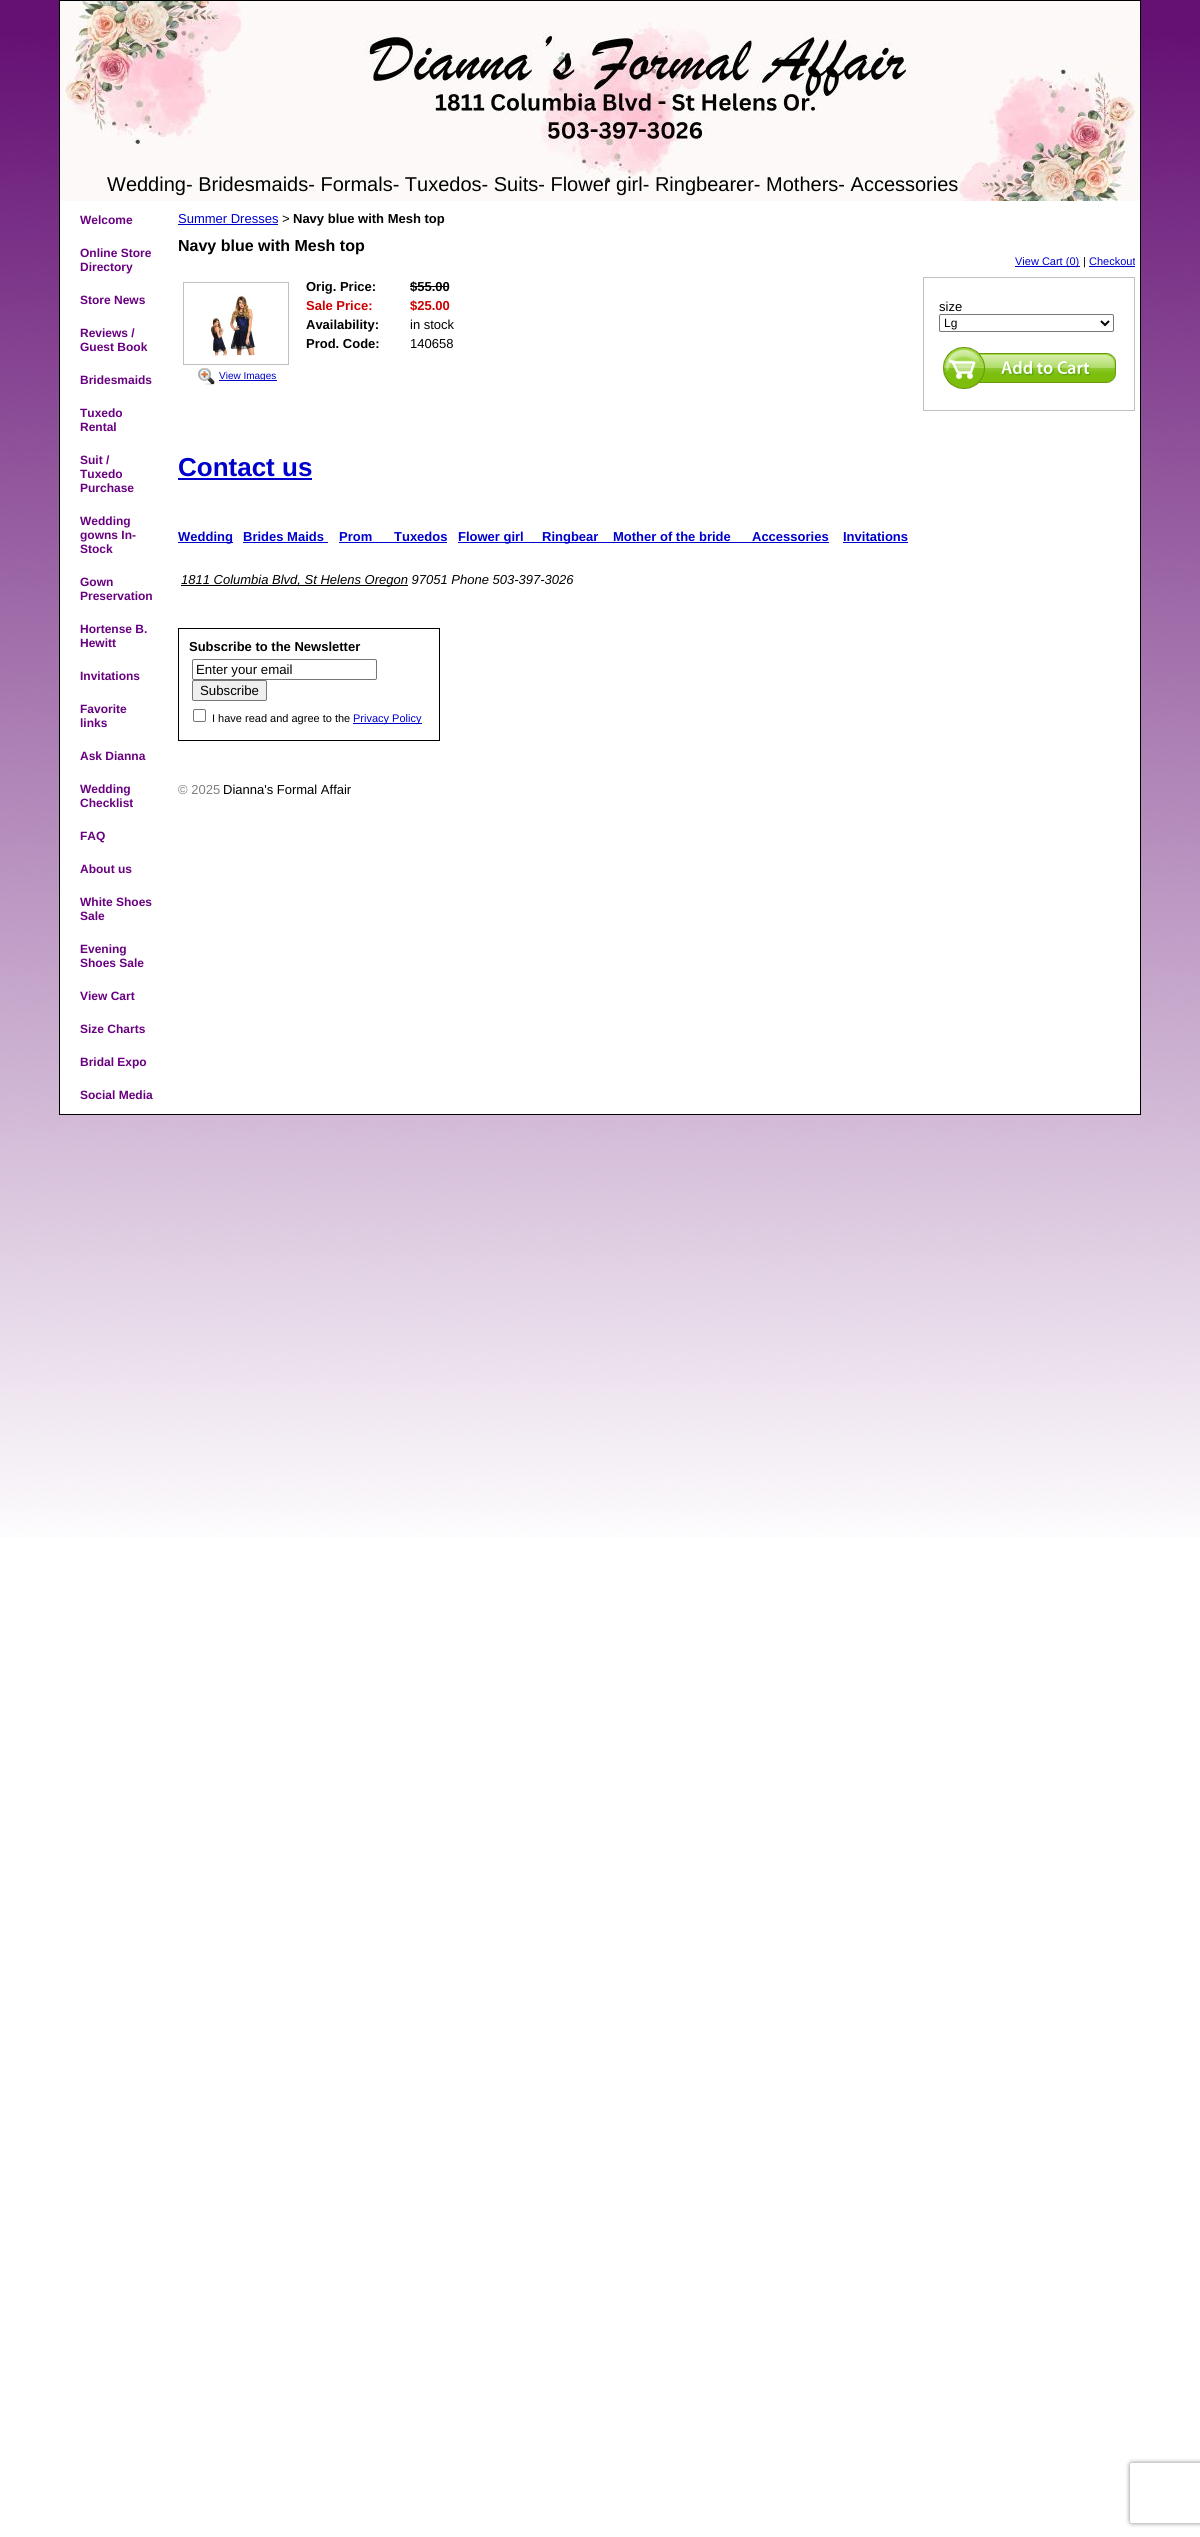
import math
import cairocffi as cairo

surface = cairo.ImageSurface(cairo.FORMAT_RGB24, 1200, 2537)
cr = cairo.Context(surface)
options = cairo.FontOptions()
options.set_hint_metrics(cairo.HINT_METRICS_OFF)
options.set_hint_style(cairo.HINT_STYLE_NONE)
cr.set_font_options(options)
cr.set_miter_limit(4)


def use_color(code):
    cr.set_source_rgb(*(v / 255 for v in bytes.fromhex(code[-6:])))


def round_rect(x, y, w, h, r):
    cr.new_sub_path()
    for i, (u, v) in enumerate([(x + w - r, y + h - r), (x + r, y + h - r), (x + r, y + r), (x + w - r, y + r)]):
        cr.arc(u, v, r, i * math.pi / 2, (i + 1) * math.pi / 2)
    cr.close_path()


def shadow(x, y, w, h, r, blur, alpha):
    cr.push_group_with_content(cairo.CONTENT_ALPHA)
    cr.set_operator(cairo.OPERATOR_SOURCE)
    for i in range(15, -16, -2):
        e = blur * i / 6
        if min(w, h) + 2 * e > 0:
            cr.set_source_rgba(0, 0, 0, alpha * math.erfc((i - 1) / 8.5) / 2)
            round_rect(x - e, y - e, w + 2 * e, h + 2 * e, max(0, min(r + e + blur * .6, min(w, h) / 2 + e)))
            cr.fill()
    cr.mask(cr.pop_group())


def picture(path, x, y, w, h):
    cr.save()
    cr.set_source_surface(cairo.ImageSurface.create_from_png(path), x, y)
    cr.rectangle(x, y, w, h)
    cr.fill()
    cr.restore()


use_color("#ffffff")
cr.paint()
picture("img1.png", 0, 0, 1200, 1537)
use_color("#000000")
cr.rectangle(59, 0, 1082, 1115)
cr.fill()
picture("img2.png", 60, 1, 1080, 200)
cr.select_font_face("Liberation Sans")
cr.set_font_size(20)
cr.move_to(107, 191)
cr.show_text("Wedding- Bridesmaids- Formals- Tuxedos- Suits- Flower girl- Ringbearer- Mothers- Accessories")
use_color("#ffffff")
cr.rectangle(60, 201, 1080, 913)
cr.fill()
cr.select_font_face("Liberation Sans", cairo.FONT_SLANT_NORMAL, cairo.FONT_WEIGHT_BOLD)
cr.set_font_size(12)
use_color("#680080")
cr.move_to(80, 224)
cr.show_text("Welcome")
cr.move_to(80, 257)
cr.show_text("Online Store")
cr.move_to(80, 271)
cr.show_text("Directory")
cr.move_to(80, 304)
cr.show_text("Store News")
cr.move_to(80, 337)
cr.show_text("Reviews /")
cr.move_to(80, 351)
cr.show_text("Guest Book")
cr.move_to(80, 384)
cr.show_text("Bridesmaids")
cr.move_to(80, 417)
cr.show_text("Tuxedo")
cr.move_to(80, 431)
cr.show_text("Rental")
cr.move_to(80, 464)
cr.show_text("Suit /")
cr.move_to(80, 478)
cr.show_text("Tuxedo")
cr.move_to(80, 492)
cr.show_text("Purchase")
cr.move_to(80, 525)
cr.show_text("Wedding")
cr.move_to(80, 539)
cr.show_text("gowns In-")
cr.move_to(80, 553)
cr.show_text("Stock")
cr.move_to(80, 586)
cr.show_text("Gown")
cr.move_to(80, 600)
cr.show_text("Preservation")
cr.move_to(80, 633)
cr.show_text("Hortense B.")
cr.move_to(80, 647)
cr.show_text("Hewitt")
cr.move_to(80, 680)
cr.show_text("Invitations")
cr.move_to(80, 713)
cr.show_text("Favorite")
cr.move_to(80, 727)
cr.show_text("links")
cr.move_to(80, 760)
cr.show_text("Ask Dianna")
cr.move_to(80, 793)
cr.show_text("Wedding")
cr.move_to(80, 807)
cr.show_text("Checklist")
cr.move_to(80, 840)
cr.show_text("FAQ")
cr.move_to(80, 873)
cr.show_text("About us")
cr.move_to(80, 906)
cr.show_text("White Shoes")
cr.move_to(80, 920)
cr.show_text("Sale")
cr.move_to(80, 953)
cr.show_text("Evening")
cr.move_to(80, 967)
cr.show_text("Shoes Sale")
cr.move_to(80, 1000)
cr.show_text("View Cart")
cr.move_to(80, 1033)
cr.show_text("Size Charts")
cr.move_to(80, 1066)
cr.show_text("Bridal Expo")
cr.move_to(80, 1099)
cr.show_text("Social Media")
cr.select_font_face("Liberation Sans")
cr.set_font_size(13)
use_color("#0000cc")
cr.move_to(178, 223)
cr.show_text("Summer Dresses")
cr.rectangle(178, 224, 100, 1)
cr.fill()
cr.select_font_face("Liberation Mono")
use_color("#000000")
cr.move_to(282, 223)
cr.show_text(">")
cr.select_font_face("Liberation Sans", cairo.FONT_SLANT_NORMAL, cairo.FONT_WEIGHT_BOLD)
cr.move_to(293, 223)
cr.show_text("Navy blue with Mesh top")
cr.set_font_size(16)
cr.move_to(178, 251)
cr.show_text("Navy blue with Mesh top")
use_color("#0000cc")
cr.rectangle(1015, 266, 65, 1)
cr.fill()
cr.select_font_face("Liberation Sans")
cr.set_font_size(11)
cr.move_to(1015, 265)
cr.show_text("View Cart (0)")
use_color("#000000")
cr.move_to(1083, 265)
cr.show_text("|")
use_color("#0000cc")
cr.move_to(1089, 265)
cr.show_text("Checkout")
cr.rectangle(1089, 266, 46, 1)
cr.fill()
cr.select_font_face("Liberation Sans", cairo.FONT_SLANT_NORMAL, cairo.FONT_WEIGHT_BOLD)
cr.set_font_size(13)
use_color("#000000")
cr.move_to(306, 291)
cr.show_text("Orig. Price:")
cr.move_to(410, 291)
cr.show_text("$55.00")
cr.rectangle(410, 286, 39, 1)
cr.fill()
use_color("#cc0000")
cr.move_to(306, 310)
cr.show_text("Sale Price:")
cr.move_to(410, 310)
cr.show_text("$25.00")
use_color("#000000")
cr.move_to(306, 329)
cr.show_text("Availability:")
cr.select_font_face("Liberation Sans")
cr.move_to(410, 329)
cr.show_text("in stock")
cr.select_font_face("Liberation Sans", cairo.FONT_SLANT_NORMAL, cairo.FONT_WEIGHT_BOLD)
cr.move_to(306, 348)
cr.show_text("Prod. Code:")
cr.select_font_face("Liberation Sans")
cr.move_to(410, 348)
cr.show_text("140658")
cr.rectangle(183.5, 282.5, 105, 82)
use_color("#c0c0c0")
cr.set_line_width(1)
cr.stroke()
picture("img3.png", 210, 293, 48, 64)
picture("img4.png", 198, 368, 17, 17)
use_color("#0000cc")
cr.rectangle(219, 380, 58, 1)
cr.fill()
cr.set_font_size(10)
cr.move_to(219, 379)
cr.show_text("View Images")
cr.rectangle(923.5, 277.5, 211, 133)
use_color("#c0c0c0")
cr.stroke()
cr.set_font_size(13)
use_color("#000000")
cr.move_to(939, 311)
cr.show_text("size")
round_rect(939.5, 314.5, 174, 17, 1.5)
use_color("#767676")
cr.stroke()
cr.new_path()
cr.move_to(1101, 321)
cr.line_to(1105, 325)
cr.line_to(1109, 321)
use_color("#000000")
cr.set_line_width(2)
cr.stroke()
cr.set_font_size(12)
cr.move_to(944, 327)
cr.show_text("Lg")
picture("img5.png", 943, 347, 173, 42)
cr.select_font_face("Liberation Sans", cairo.FONT_SLANT_NORMAL, cairo.FONT_WEIGHT_BOLD)
cr.set_font_size(26)
use_color("#0000cc")
cr.move_to(178, 476)
cr.show_text("Contact us")
cr.rectangle(178, 478, 134, 2)
cr.fill()
cr.rectangle(178, 542, 55, 1)
cr.fill()
cr.set_font_size(13)
cr.move_to(178, 541)
cr.show_text("Wedding")
cr.move_to(243, 541)
cr.show_text("Brides Maids")
cr.rectangle(243, 542, 85, 1)
cr.fill()
cr.move_to(339, 541)
cr.show_text("Prom")
cr.rectangle(339, 542, 108, 1)
cr.fill()
cr.move_to(394, 541)
cr.show_text("Tuxedos")
cr.rectangle(458, 542, 371, 1)
cr.fill()
cr.move_to(458, 541)
cr.show_text("Flower girl")
cr.move_to(542, 541)
cr.show_text("Ringbear")
cr.move_to(613, 541)
cr.show_text("Mother of the bride")
cr.move_to(752, 541)
cr.show_text("Accessories")
cr.move_to(843, 541)
cr.show_text("Invitations")
cr.rectangle(843, 542, 65, 1)
cr.fill()
use_color("#000000")
cr.rectangle(181, 585, 227, 1)
cr.fill()
cr.select_font_face("Liberation Sans", cairo.FONT_SLANT_ITALIC)
cr.move_to(181, 584)
cr.show_text("1811 Columbia Blvd, St Helens Oregon 97051 Phone 503-397-3026")
cr.rectangle(178.5, 628.5, 261, 112)
cr.set_line_width(1)
cr.stroke()
cr.select_font_face("Liberation Sans", cairo.FONT_SLANT_NORMAL, cairo.FONT_WEIGHT_BOLD)
cr.move_to(189, 651)
cr.show_text("Subscribe to the Newsletter")
round_rect(192.5, 659.5, 184, 20, 1.5)
use_color("#767676")
cr.stroke()
cr.select_font_face("Liberation Sans")
cr.set_font_size(13.25)
use_color("#000000")
cr.move_to(196, 674)
cr.show_text("Enter your email")
use_color("#efefef")
round_rect(192.5, 680.5, 74, 20, 1.5)
cr.fill_preserve()
use_color("#767676")
cr.stroke()
use_color("#000000")
cr.move_to(200, 695)
cr.show_text("Subscribe")
round_rect(193.5, 709.5, 12, 12, 1.5)
use_color("#767676")
cr.stroke()
cr.set_font_size(11)
use_color("#000000")
cr.move_to(212, 722)
cr.show_text("I have read and agree to the")
use_color("#0000cc")
cr.rectangle(353, 723, 69, 1)
cr.fill()
cr.move_to(353, 722)
cr.show_text("Privacy Policy")
cr.set_font_size(13)
use_color("#808080")
cr.move_to(178, 794)
cr.show_text("© 2025")
use_color("#000000")
cr.move_to(223, 794)
cr.show_text("Dianna's Formal Affair")
cr.save()
cr.set_fill_rule(cairo.FILL_RULE_EVEN_ODD)
cr.new_path()
cr.move_to(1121, 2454)
cr.line_to(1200, 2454)
cr.line_to(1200, 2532)
cr.line_to(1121, 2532)
cr.close_path()
cr.move_to(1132, 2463)
cr.line_to(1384, 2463)
cr.curve_to(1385, 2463, 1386, 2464, 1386, 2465)
cr.line_to(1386, 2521)
cr.curve_to(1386, 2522, 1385, 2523, 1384, 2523)
cr.line_to(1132, 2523)
cr.curve_to(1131, 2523, 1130, 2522, 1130, 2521)
cr.line_to(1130, 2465)
cr.curve_to(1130, 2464, 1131, 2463, 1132, 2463)
cr.close_path()
cr.clip()
use_color("#808080")
shadow(1130, 2463, 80, 60, 2, 2.5, 1)
cr.restore()
surface.write_to_png("result.png")
